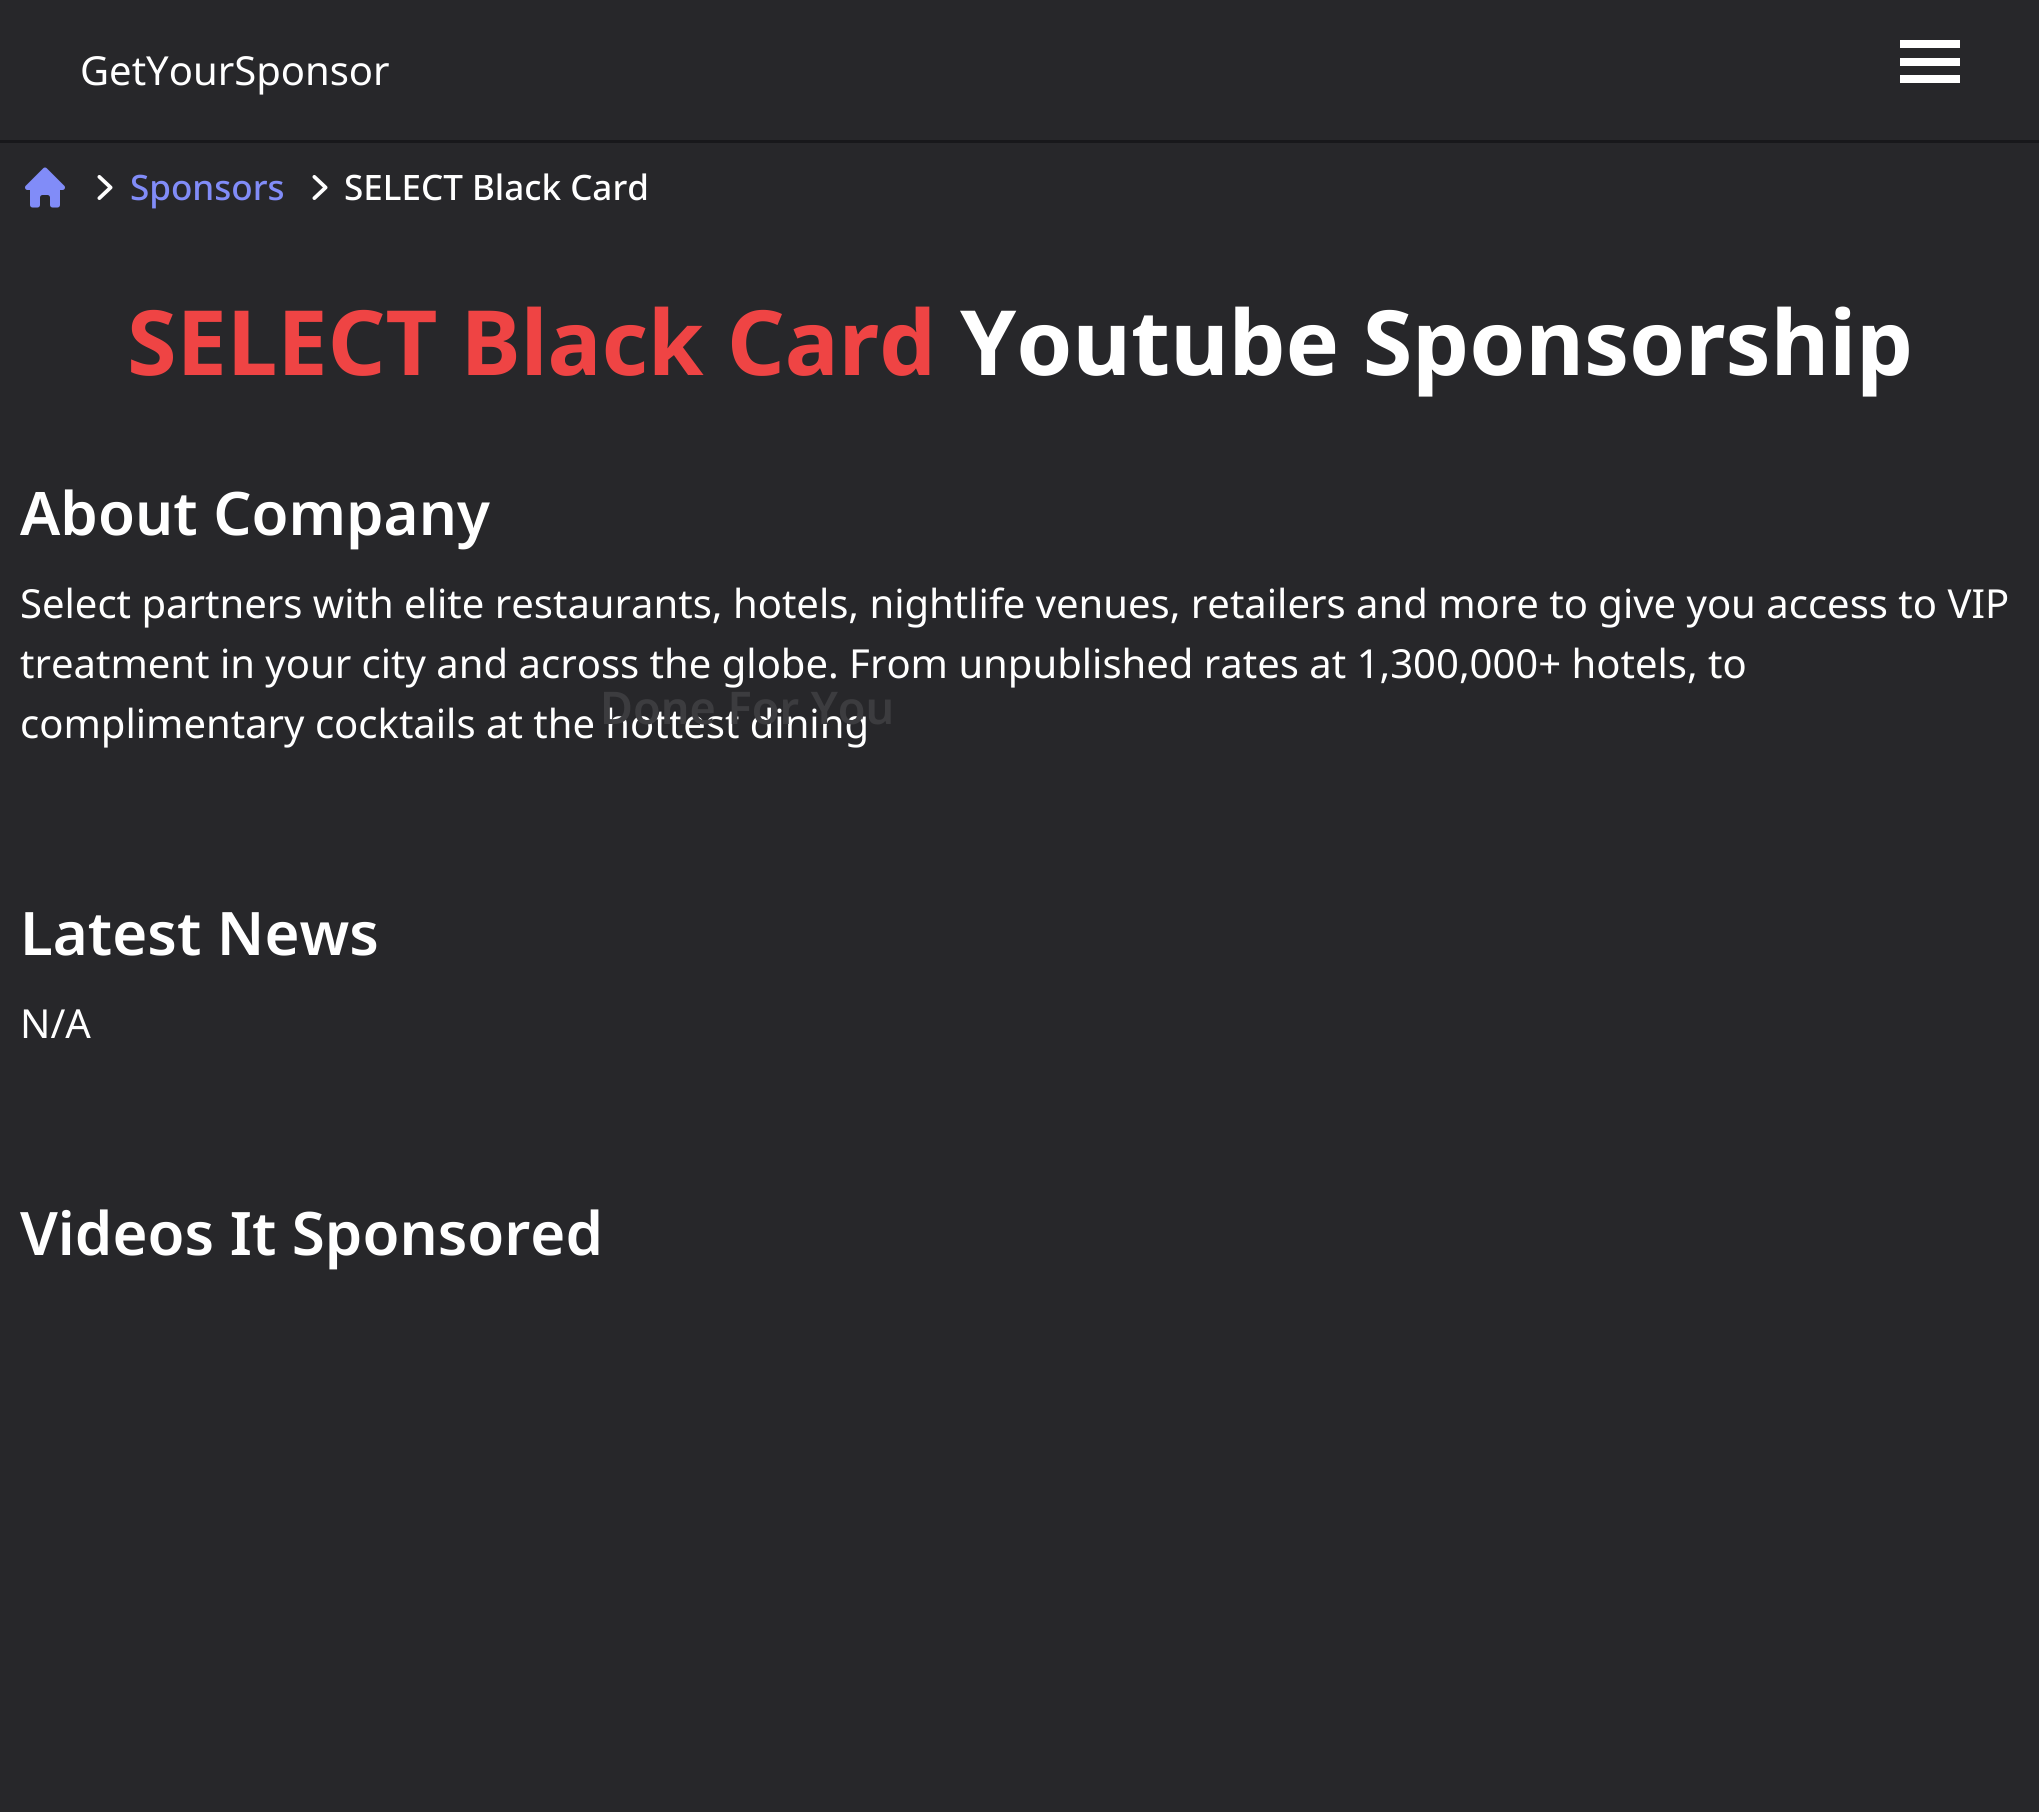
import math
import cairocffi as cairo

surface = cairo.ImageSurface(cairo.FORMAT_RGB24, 2039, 1812)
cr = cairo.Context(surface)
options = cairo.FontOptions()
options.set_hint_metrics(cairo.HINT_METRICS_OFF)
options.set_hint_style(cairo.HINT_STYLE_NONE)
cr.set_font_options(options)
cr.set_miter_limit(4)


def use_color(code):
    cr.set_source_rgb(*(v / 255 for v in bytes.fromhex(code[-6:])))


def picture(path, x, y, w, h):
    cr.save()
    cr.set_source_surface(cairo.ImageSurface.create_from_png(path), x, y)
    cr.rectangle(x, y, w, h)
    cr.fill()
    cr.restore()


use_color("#27272a")
cr.paint()
use_color("#18181b")
cr.rectangle(0, 140, 2039, 3)
cr.fill()
cr.select_font_face("Noto Sans")
cr.set_font_size(40)
use_color("#ffffff")
cr.move_to(80, 85)
cr.show_text("GetYourSponsor")
cr.rectangle(1900, 40, 60, 8)
cr.fill()
cr.rectangle(1900, 58, 60, 8)
cr.fill()
cr.rectangle(1900, 75, 60, 8)
cr.fill()
picture("img1.png", 25, 167, 40, 41)
picture("img2.png", 97, 175, 16, 25)
cr.select_font_face("Noto Sans Medium")
cr.set_font_size(35)
use_color("#818cf8")
cr.move_to(130, 200)
cr.show_text("Sponsors")
picture("img2.png", 312, 175, 16, 25)
use_color("#ffffff")
cr.move_to(344, 200)
cr.show_text("SELECT Black Card")
cr.select_font_face("Noto Sans", cairo.FONT_SLANT_NORMAL, cairo.FONT_WEIGHT_BOLD)
cr.set_font_size(90)
use_color("#ef4444")
cr.move_to(127, 375)
cr.show_text("SELECT Black Card")
use_color("#ffffff")
cr.move_to(960, 375)
cr.show_text("Youtube Sponsorship")
cr.select_font_face("Noto Sans SemiBold")
cr.set_font_size(60)
cr.move_to(20, 535)
cr.show_text("About Company")
cr.select_font_face("Noto Sans")
cr.set_font_size(40)
cr.move_to(20, 618)
cr.show_text("Select partners with elite restaurants, hotels, nightlife venues, retailers and more to give you access to VIP")
cr.move_to(20, 678)
cr.show_text("treatment in your city and across the globe. From unpublished rates at 1,300,000+ hotels, to")
cr.move_to(20, 738)
cr.show_text("complimentary cocktails at the hottest dining")
cr.select_font_face("Noto Sans SemiBold")
cr.set_font_size(60)
cr.move_to(20, 955)
cr.show_text("Latest News")
cr.select_font_face("Noto Sans")
cr.set_font_size(40)
cr.move_to(20, 1038)
cr.show_text("N/A")
cr.select_font_face("Noto Sans SemiBold")
cr.set_font_size(60)
cr.move_to(20, 1255)
cr.show_text("Videos It Sponsored")
cr.set_font_size(45)
use_color("#3c3c3f")
cr.move_to(600, 724)
cr.show_text("Done For You")
surface.write_to_png("result.png")
